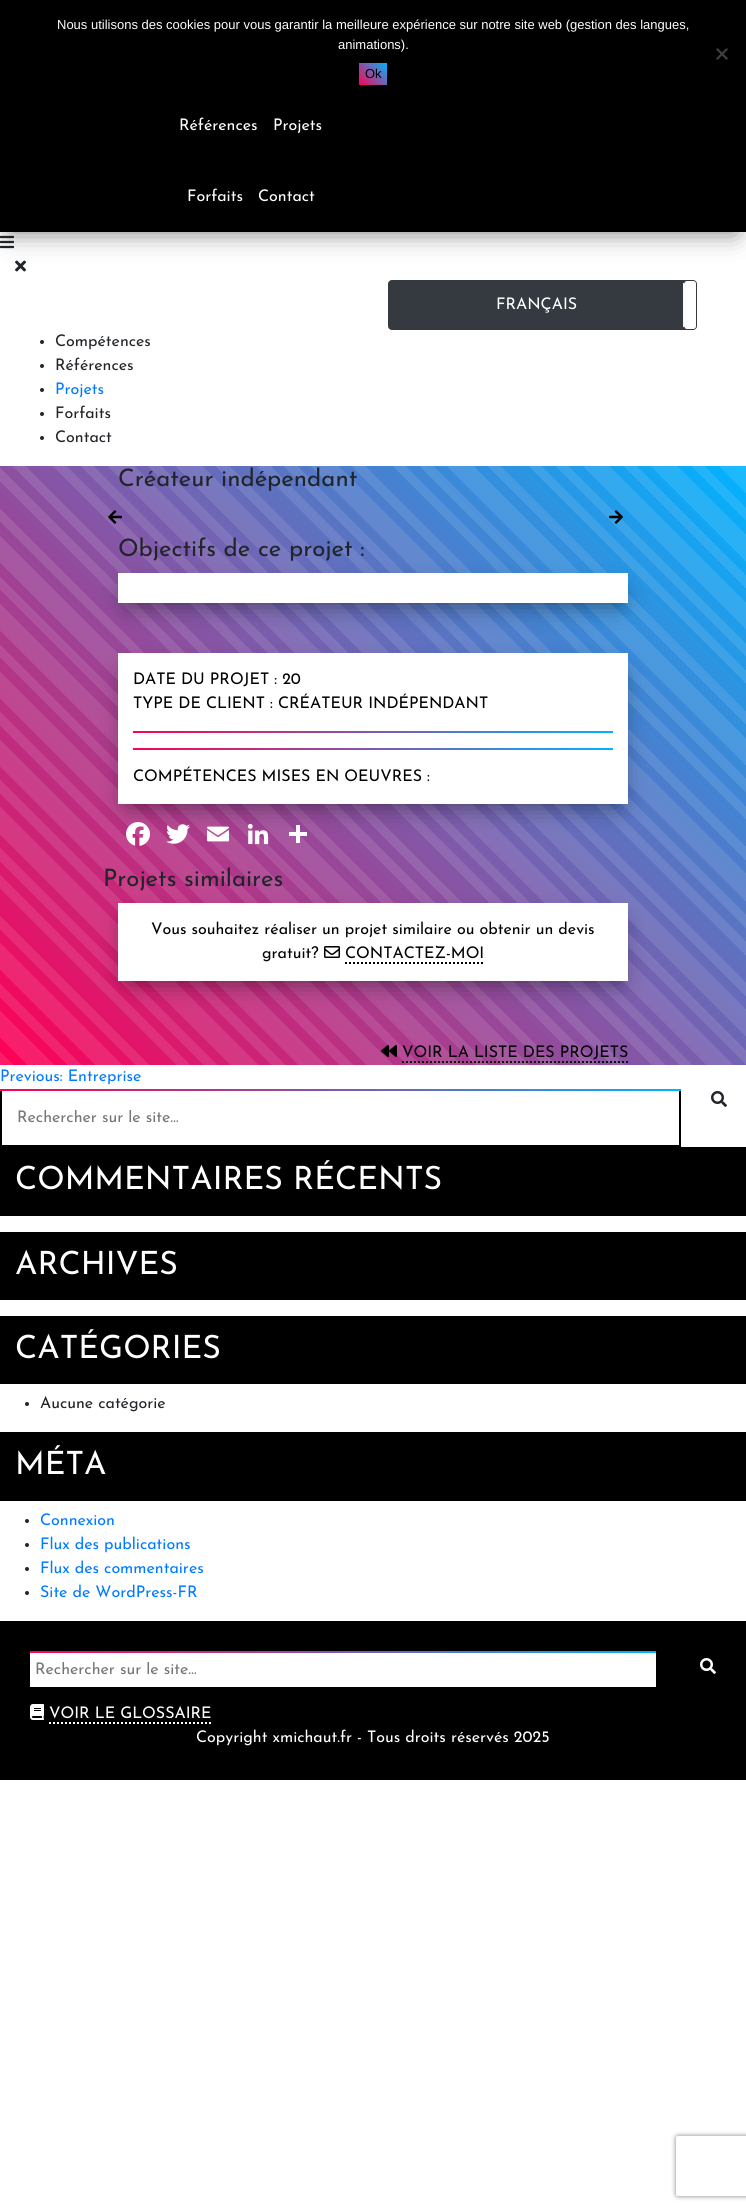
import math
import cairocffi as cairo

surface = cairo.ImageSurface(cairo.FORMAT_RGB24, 746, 2210)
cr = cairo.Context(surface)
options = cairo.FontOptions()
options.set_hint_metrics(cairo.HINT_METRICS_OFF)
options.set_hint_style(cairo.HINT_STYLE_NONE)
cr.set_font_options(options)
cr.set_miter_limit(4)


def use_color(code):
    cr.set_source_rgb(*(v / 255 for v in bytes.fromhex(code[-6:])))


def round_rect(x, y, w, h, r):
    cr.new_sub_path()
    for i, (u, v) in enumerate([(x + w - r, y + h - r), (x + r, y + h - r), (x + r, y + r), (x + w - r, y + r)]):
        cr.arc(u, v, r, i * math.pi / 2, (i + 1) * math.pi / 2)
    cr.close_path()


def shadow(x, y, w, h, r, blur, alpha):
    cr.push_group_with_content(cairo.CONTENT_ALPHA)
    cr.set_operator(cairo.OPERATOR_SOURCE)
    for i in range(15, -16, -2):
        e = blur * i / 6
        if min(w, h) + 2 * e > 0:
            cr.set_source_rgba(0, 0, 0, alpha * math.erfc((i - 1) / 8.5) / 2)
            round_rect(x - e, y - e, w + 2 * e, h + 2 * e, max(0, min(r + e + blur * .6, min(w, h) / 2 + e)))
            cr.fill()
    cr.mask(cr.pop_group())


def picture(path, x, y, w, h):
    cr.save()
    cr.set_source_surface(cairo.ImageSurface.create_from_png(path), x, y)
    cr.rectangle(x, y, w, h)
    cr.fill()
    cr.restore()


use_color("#ffffff")
cr.paint()
use_color("#000000")
shadow(10, 20, 726, 212, 0, 13, 0.53)
use_color("#000000")
cr.rectangle(0, 0, 746, 232)
cr.fill()
cr.select_font_face("Liberation Sans")
cr.set_font_size(13)
use_color("#ffffff")
cr.move_to(57, 29)
cr.show_text("Nous utilisons des cookies pour vous garantir la meilleure expérience sur notre site web (gestion des langues,")
cr.move_to(338, 49)
cr.show_text("animations).")
use_color("#404040")
cr.new_path()
cr.move_to(726.5, 48)
cr.line_to(728, 49.5)
cr.line_to(717.5, 60)
cr.line_to(716, 58.5)
cr.close_path()
cr.fill()
cr.new_path()
cr.move_to(716, 49.5)
cr.line_to(717.5, 48)
cr.line_to(728, 58.5)
cr.line_to(726.5, 60)
cr.close_path()
cr.fill()
gradient = cairo.LinearGradient(361, 87, 386, 62)
gradient.add_color_stop_rgba(0, 1, 0, 0.333, 1)
gradient.add_color_stop_rgba(1, 0, 0.702, 1, 1)
cr.set_source(gradient)
cr.rectangle(359, 63, 28, 22)
cr.fill()
use_color("#000000")
cr.move_to(365, 78)
cr.show_text("Ok")
cr.select_font_face("Josefin Sans")
cr.set_font_size(16)
use_color("#ffffff")
cr.move_to(179, 130)
cr.show_text("Références")
cr.move_to(273, 130)
cr.show_text("Projets")
cr.move_to(187, 201)
cr.show_text("Forfaits")
cr.move_to(258, 201)
cr.show_text("Contact")
picture("img1.png", 0, 235, 14, 14)
picture("img2.png", 15, 260, 11, 12)
use_color("#343a40")
round_rect(388.5, 280.5, 308, 49, 3.5)
cr.fill_preserve()
cr.set_line_width(1)
cr.stroke()
use_color("#ffffff")
cr.move_to(496, 309)
cr.show_text("FRANÇAIS")
cr.new_path()
cr.move_to(687, 281)
cr.curve_to(685, 281, 684, 283, 684, 285)
cr.line_to(684, 325)
cr.curve_to(684, 327, 685, 329, 687, 329)
cr.line_to(693, 329)
cr.curve_to(695, 329, 696, 328, 696, 326)
cr.line_to(696, 284)
cr.curve_to(696, 282, 695, 281, 693, 281)
cr.close_path()
cr.fill()
use_color("#f8f9fa")
cr.rectangle(683, 283, 1, 44)
cr.fill()
use_color("#212529")
cr.arc(42, 342, 2, 0, 2 * math.pi)
cr.fill()
cr.move_to(55, 346)
cr.show_text("Compétences")
cr.new_path()
cr.arc(42, 366, 2, 0, 2 * math.pi)
cr.fill()
cr.move_to(55, 370)
cr.show_text("Références")
cr.new_path()
cr.arc(42, 390, 2, 0, 2 * math.pi)
cr.fill()
use_color("#007bff")
cr.move_to(55, 394)
cr.show_text("Projets")
use_color("#212529")
cr.new_path()
cr.arc(42, 414, 2, 0, 2 * math.pi)
cr.fill()
cr.move_to(55, 418)
cr.show_text("Forfaits")
cr.new_path()
cr.arc(42, 438, 2, 0, 2 * math.pi)
cr.fill()
cr.move_to(55, 442)
cr.show_text("Contact")
gradient = cairo.LinearGradient(37, 1102, 709, 429)
gradient.add_color_stop_rgba(0, 1, 0, 0.333, 1)
gradient.add_color_stop_rgba(1, 0, 0.702, 1, 1)
cr.set_source(gradient)
cr.rectangle(0, 466, 746, 599)
cr.fill()
gradient = cairo.LinearGradient(37, 1102, 716, 423)
gradient.add_color_stop_rgba(0, 1, 1, 1, 0.1)
gradient.add_color_stop_rgba(0.01, 1, 1, 1, 0.1)
gradient.add_color_stop_rgba(0.01, 1, 1, 1, 0)
gradient.add_color_stop_rgba(0.02, 1, 1, 1, 0)
gradient.add_color_stop_rgba(0.02, 1, 1, 1, 0.1)
gradient.add_color_stop_rgba(0.03, 1, 1, 1, 0.1)
gradient.add_color_stop_rgba(0.03, 1, 1, 1, 0)
gradient.add_color_stop_rgba(0.03, 1, 1, 1, 0)
gradient.add_color_stop_rgba(0.03, 1, 1, 1, 0.1)
gradient.add_color_stop_rgba(0.04, 1, 1, 1, 0.1)
gradient.add_color_stop_rgba(0.04, 1, 1, 1, 0)
gradient.add_color_stop_rgba(0.05, 1, 1, 1, 0)
gradient.add_color_stop_rgba(0.05, 1, 1, 1, 0.1)
gradient.add_color_stop_rgba(0.06, 1, 1, 1, 0.1)
gradient.add_color_stop_rgba(0.06, 1, 1, 1, 0)
gradient.add_color_stop_rgba(0.07, 1, 1, 1, 0)
gradient.add_color_stop_rgba(0.07, 1, 1, 1, 0.1)
gradient.add_color_stop_rgba(0.08, 1, 1, 1, 0.1)
gradient.add_color_stop_rgba(0.08, 1, 1, 1, 0)
gradient.add_color_stop_rgba(0.08, 1, 1, 1, 0)
gradient.add_color_stop_rgba(0.08, 1, 1, 1, 0.1)
gradient.add_color_stop_rgba(0.09, 1, 1, 1, 0.1)
gradient.add_color_stop_rgba(0.09, 1, 1, 1, 0)
gradient.add_color_stop_rgba(0.1, 1, 1, 1, 0)
gradient.add_color_stop_rgba(0.1, 1, 1, 1, 0.1)
gradient.add_color_stop_rgba(0.11, 1, 1, 1, 0.1)
gradient.add_color_stop_rgba(0.11, 1, 1, 1, 0)
gradient.add_color_stop_rgba(0.12, 1, 1, 1, 0)
gradient.add_color_stop_rgba(0.12, 1, 1, 1, 0.1)
gradient.add_color_stop_rgba(0.12, 1, 1, 1, 0.1)
gradient.add_color_stop_rgba(0.12, 1, 1, 1, 0)
gradient.add_color_stop_rgba(0.13, 1, 1, 1, 0)
gradient.add_color_stop_rgba(0.13, 1, 1, 1, 0.1)
gradient.add_color_stop_rgba(0.14, 1, 1, 1, 0.1)
gradient.add_color_stop_rgba(0.14, 1, 1, 1, 0)
gradient.add_color_stop_rgba(0.15, 1, 1, 1, 0)
gradient.add_color_stop_rgba(0.15, 1, 1, 1, 0.1)
gradient.add_color_stop_rgba(0.16, 1, 1, 1, 0.1)
gradient.add_color_stop_rgba(0.16, 1, 1, 1, 0)
gradient.add_color_stop_rgba(0.17, 1, 1, 1, 0)
gradient.add_color_stop_rgba(0.17, 1, 1, 1, 0.1)
gradient.add_color_stop_rgba(0.18, 1, 1, 1, 0.1)
gradient.add_color_stop_rgba(0.18, 1, 1, 1, 0)
gradient.add_color_stop_rgba(0.18, 1, 1, 1, 0)
gradient.add_color_stop_rgba(0.18, 1, 1, 1, 0.1)
gradient.add_color_stop_rgba(0.19, 1, 1, 1, 0.1)
gradient.add_color_stop_rgba(0.19, 1, 1, 1, 0)
gradient.add_color_stop_rgba(0.2, 1, 1, 1, 0)
gradient.add_color_stop_rgba(0.2, 1, 1, 1, 0.1)
gradient.add_color_stop_rgba(0.21, 1, 1, 1, 0.1)
gradient.add_color_stop_rgba(0.21, 1, 1, 1, 0)
gradient.add_color_stop_rgba(0.22, 1, 1, 1, 0)
gradient.add_color_stop_rgba(0.22, 1, 1, 1, 0.1)
gradient.add_color_stop_rgba(0.23, 1, 1, 1, 0.1)
gradient.add_color_stop_rgba(0.23, 1, 1, 1, 0)
gradient.add_color_stop_rgba(0.23, 1, 1, 1, 0)
gradient.add_color_stop_rgba(0.23, 1, 1, 1, 0.1)
gradient.add_color_stop_rgba(0.24, 1, 1, 1, 0.1)
gradient.add_color_stop_rgba(0.24, 1, 1, 1, 0)
gradient.add_color_stop_rgba(0.25, 1, 1, 1, 0)
gradient.add_color_stop_rgba(0.25, 1, 1, 1, 0.1)
gradient.add_color_stop_rgba(0.26, 1, 1, 1, 0.1)
gradient.add_color_stop_rgba(0.26, 1, 1, 1, 0)
gradient.add_color_stop_rgba(0.27, 1, 1, 1, 0)
gradient.add_color_stop_rgba(0.27, 1, 1, 1, 0.1)
gradient.add_color_stop_rgba(0.28, 1, 1, 1, 0.1)
gradient.add_color_stop_rgba(0.28, 1, 1, 1, 0)
gradient.add_color_stop_rgba(0.28, 1, 1, 1, 0)
gradient.add_color_stop_rgba(0.28, 1, 1, 1, 0.1)
gradient.add_color_stop_rgba(0.29, 1, 1, 1, 0.1)
gradient.add_color_stop_rgba(0.29, 1, 1, 1, 0)
gradient.add_color_stop_rgba(0.3, 1, 1, 1, 0)
gradient.add_color_stop_rgba(0.3, 1, 1, 1, 0.1)
gradient.add_color_stop_rgba(0.31, 1, 1, 1, 0.1)
gradient.add_color_stop_rgba(0.31, 1, 1, 1, 0)
gradient.add_color_stop_rgba(0.32, 1, 1, 1, 0)
gradient.add_color_stop_rgba(0.32, 1, 1, 1, 0.1)
gradient.add_color_stop_rgba(0.33, 1, 1, 1, 0.1)
gradient.add_color_stop_rgba(0.33, 1, 1, 1, 0)
gradient.add_color_stop_rgba(0.33, 1, 1, 1, 0)
gradient.add_color_stop_rgba(0.33, 1, 1, 1, 0.1)
gradient.add_color_stop_rgba(0.34, 1, 1, 1, 0.1)
gradient.add_color_stop_rgba(0.34, 1, 1, 1, 0)
gradient.add_color_stop_rgba(0.35, 1, 1, 1, 0)
gradient.add_color_stop_rgba(0.35, 1, 1, 1, 0.1)
gradient.add_color_stop_rgba(0.36, 1, 1, 1, 0.1)
gradient.add_color_stop_rgba(0.36, 1, 1, 1, 0)
gradient.add_color_stop_rgba(0.37, 1, 1, 1, 0)
gradient.add_color_stop_rgba(0.37, 1, 1, 1, 0.1)
gradient.add_color_stop_rgba(0.38, 1, 1, 1, 0.1)
gradient.add_color_stop_rgba(0.38, 1, 1, 1, 0)
gradient.add_color_stop_rgba(0.38, 1, 1, 1, 0)
gradient.add_color_stop_rgba(0.38, 1, 1, 1, 0.1)
gradient.add_color_stop_rgba(0.39, 1, 1, 1, 0.1)
gradient.add_color_stop_rgba(0.39, 1, 1, 1, 0)
gradient.add_color_stop_rgba(0.4, 1, 1, 1, 0)
gradient.add_color_stop_rgba(0.4, 1, 1, 1, 0.1)
gradient.add_color_stop_rgba(0.41, 1, 1, 1, 0.1)
gradient.add_color_stop_rgba(0.41, 1, 1, 1, 0)
gradient.add_color_stop_rgba(0.42, 1, 1, 1, 0)
gradient.add_color_stop_rgba(0.42, 1, 1, 1, 0.1)
gradient.add_color_stop_rgba(0.42, 1, 1, 1, 0.1)
gradient.add_color_stop_rgba(0.42, 1, 1, 1, 0)
gradient.add_color_stop_rgba(0.43, 1, 1, 1, 0)
gradient.add_color_stop_rgba(0.43, 1, 1, 1, 0.1)
gradient.add_color_stop_rgba(0.44, 1, 1, 1, 0.1)
gradient.add_color_stop_rgba(0.44, 1, 1, 1, 0)
gradient.add_color_stop_rgba(0.45, 1, 1, 1, 0)
gradient.add_color_stop_rgba(0.45, 1, 1, 1, 0.1)
gradient.add_color_stop_rgba(0.46, 1, 1, 1, 0.1)
gradient.add_color_stop_rgba(0.46, 1, 1, 1, 0)
gradient.add_color_stop_rgba(0.47, 1, 1, 1, 0)
gradient.add_color_stop_rgba(0.47, 1, 1, 1, 0.1)
gradient.add_color_stop_rgba(0.47, 1, 1, 1, 0.1)
gradient.add_color_stop_rgba(0.47, 1, 1, 1, 0)
gradient.add_color_stop_rgba(0.48, 1, 1, 1, 0)
gradient.add_color_stop_rgba(0.48, 1, 1, 1, 0.1)
gradient.add_color_stop_rgba(0.49, 1, 1, 1, 0.1)
gradient.add_color_stop_rgba(0.49, 1, 1, 1, 0)
gradient.add_color_stop_rgba(0.5, 1, 1, 1, 0)
gradient.add_color_stop_rgba(0.5, 1, 1, 1, 0.1)
gradient.add_color_stop_rgba(0.51, 1, 1, 1, 0.1)
gradient.add_color_stop_rgba(0.51, 1, 1, 1, 0)
gradient.add_color_stop_rgba(0.52, 1, 1, 1, 0)
gradient.add_color_stop_rgba(0.52, 1, 1, 1, 0.1)
gradient.add_color_stop_rgba(0.53, 1, 1, 1, 0.1)
gradient.add_color_stop_rgba(0.53, 1, 1, 1, 0)
gradient.add_color_stop_rgba(0.53, 1, 1, 1, 0)
gradient.add_color_stop_rgba(0.53, 1, 1, 1, 0.1)
gradient.add_color_stop_rgba(0.54, 1, 1, 1, 0.1)
gradient.add_color_stop_rgba(0.54, 1, 1, 1, 0)
gradient.add_color_stop_rgba(0.55, 1, 1, 1, 0)
gradient.add_color_stop_rgba(0.55, 1, 1, 1, 0.1)
gradient.add_color_stop_rgba(0.56, 1, 1, 1, 0.1)
gradient.add_color_stop_rgba(0.56, 1, 1, 1, 0)
gradient.add_color_stop_rgba(0.57, 1, 1, 1, 0)
gradient.add_color_stop_rgba(0.57, 1, 1, 1, 0.1)
gradient.add_color_stop_rgba(0.58, 1, 1, 1, 0.1)
gradient.add_color_stop_rgba(0.58, 1, 1, 1, 0)
gradient.add_color_stop_rgba(0.58, 1, 1, 1, 0)
gradient.add_color_stop_rgba(0.58, 1, 1, 1, 0.1)
gradient.add_color_stop_rgba(0.59, 1, 1, 1, 0.1)
gradient.add_color_stop_rgba(0.59, 1, 1, 1, 0)
gradient.add_color_stop_rgba(0.6, 1, 1, 1, 0)
gradient.add_color_stop_rgba(0.6, 1, 1, 1, 0.1)
gradient.add_color_stop_rgba(0.61, 1, 1, 1, 0.1)
gradient.add_color_stop_rgba(0.61, 1, 1, 1, 0)
gradient.add_color_stop_rgba(0.62, 1, 1, 1, 0)
gradient.add_color_stop_rgba(0.62, 1, 1, 1, 0.1)
gradient.add_color_stop_rgba(0.62, 1, 1, 1, 0.1)
gradient.add_color_stop_rgba(0.62, 1, 1, 1, 0)
gradient.add_color_stop_rgba(0.63, 1, 1, 1, 0)
gradient.add_color_stop_rgba(0.63, 1, 1, 1, 0.1)
gradient.add_color_stop_rgba(0.64, 1, 1, 1, 0.1)
gradient.add_color_stop_rgba(0.64, 1, 1, 1, 0)
gradient.add_color_stop_rgba(0.65, 1, 1, 1, 0)
gradient.add_color_stop_rgba(0.65, 1, 1, 1, 0.1)
gradient.add_color_stop_rgba(0.66, 1, 1, 1, 0.1)
gradient.add_color_stop_rgba(0.66, 1, 1, 1, 0)
gradient.add_color_stop_rgba(0.67, 1, 1, 1, 0)
gradient.add_color_stop_rgba(0.67, 1, 1, 1, 0.1)
gradient.add_color_stop_rgba(0.68, 1, 1, 1, 0.1)
gradient.add_color_stop_rgba(0.68, 1, 1, 1, 0)
gradient.add_color_stop_rgba(0.68, 1, 1, 1, 0)
gradient.add_color_stop_rgba(0.68, 1, 1, 1, 0.1)
gradient.add_color_stop_rgba(0.69, 1, 1, 1, 0.1)
gradient.add_color_stop_rgba(0.69, 1, 1, 1, 0)
gradient.add_color_stop_rgba(0.7, 1, 1, 1, 0)
gradient.add_color_stop_rgba(0.7, 1, 1, 1, 0.1)
gradient.add_color_stop_rgba(0.71, 1, 1, 1, 0.1)
gradient.add_color_stop_rgba(0.71, 1, 1, 1, 0)
gradient.add_color_stop_rgba(0.72, 1, 1, 1, 0)
gradient.add_color_stop_rgba(0.72, 1, 1, 1, 0.1)
gradient.add_color_stop_rgba(0.72, 1, 1, 1, 0.1)
gradient.add_color_stop_rgba(0.72, 1, 1, 1, 0)
gradient.add_color_stop_rgba(0.73, 1, 1, 1, 0)
gradient.add_color_stop_rgba(0.73, 1, 1, 1, 0.1)
gradient.add_color_stop_rgba(0.74, 1, 1, 1, 0.1)
gradient.add_color_stop_rgba(0.74, 1, 1, 1, 0)
gradient.add_color_stop_rgba(0.75, 1, 1, 1, 0)
gradient.add_color_stop_rgba(0.75, 1, 1, 1, 0.1)
gradient.add_color_stop_rgba(0.76, 1, 1, 1, 0.1)
gradient.add_color_stop_rgba(0.76, 1, 1, 1, 0)
gradient.add_color_stop_rgba(0.77, 1, 1, 1, 0)
gradient.add_color_stop_rgba(0.77, 1, 1, 1, 0.1)
gradient.add_color_stop_rgba(0.78, 1, 1, 1, 0.1)
gradient.add_color_stop_rgba(0.78, 1, 1, 1, 0)
gradient.add_color_stop_rgba(0.78, 1, 1, 1, 0)
gradient.add_color_stop_rgba(0.78, 1, 1, 1, 0.1)
gradient.add_color_stop_rgba(0.79, 1, 1, 1, 0.1)
gradient.add_color_stop_rgba(0.79, 1, 1, 1, 0)
gradient.add_color_stop_rgba(0.8, 1, 1, 1, 0)
gradient.add_color_stop_rgba(0.8, 1, 1, 1, 0.1)
gradient.add_color_stop_rgba(0.81, 1, 1, 1, 0.1)
gradient.add_color_stop_rgba(0.81, 1, 1, 1, 0)
gradient.add_color_stop_rgba(0.82, 1, 1, 1, 0)
gradient.add_color_stop_rgba(0.82, 1, 1, 1, 0.1)
gradient.add_color_stop_rgba(0.82, 1, 1, 1, 0.1)
gradient.add_color_stop_rgba(0.82, 1, 1, 1, 0)
gradient.add_color_stop_rgba(0.83, 1, 1, 1, 0)
gradient.add_color_stop_rgba(0.83, 1, 1, 1, 0.1)
gradient.add_color_stop_rgba(0.84, 1, 1, 1, 0.1)
gradient.add_color_stop_rgba(0.84, 1, 1, 1, 0)
gradient.add_color_stop_rgba(0.85, 1, 1, 1, 0)
gradient.add_color_stop_rgba(0.85, 1, 1, 1, 0.1)
gradient.add_color_stop_rgba(0.86, 1, 1, 1, 0.1)
gradient.add_color_stop_rgba(0.86, 1, 1, 1, 0)
gradient.add_color_stop_rgba(0.87, 1, 1, 1, 0)
gradient.add_color_stop_rgba(0.87, 1, 1, 1, 0.1)
gradient.add_color_stop_rgba(0.88, 1, 1, 1, 0.1)
gradient.add_color_stop_rgba(0.88, 1, 1, 1, 0)
gradient.add_color_stop_rgba(0.88, 1, 1, 1, 0)
gradient.add_color_stop_rgba(0.88, 1, 1, 1, 0.1)
gradient.add_color_stop_rgba(0.89, 1, 1, 1, 0.1)
gradient.add_color_stop_rgba(0.89, 1, 1, 1, 0)
gradient.add_color_stop_rgba(0.9, 1, 1, 1, 0)
gradient.add_color_stop_rgba(0.9, 1, 1, 1, 0.1)
gradient.add_color_stop_rgba(0.91, 1, 1, 1, 0.1)
gradient.add_color_stop_rgba(0.91, 1, 1, 1, 0)
gradient.add_color_stop_rgba(0.92, 1, 1, 1, 0)
gradient.add_color_stop_rgba(0.92, 1, 1, 1, 0.1)
gradient.add_color_stop_rgba(0.93, 1, 1, 1, 0.1)
gradient.add_color_stop_rgba(0.93, 1, 1, 1, 0)
gradient.add_color_stop_rgba(0.93, 1, 1, 1, 0)
gradient.add_color_stop_rgba(0.93, 1, 1, 1, 0.1)
gradient.add_color_stop_rgba(0.94, 1, 1, 1, 0.1)
gradient.add_color_stop_rgba(0.94, 1, 1, 1, 0)
gradient.add_color_stop_rgba(0.95, 1, 1, 1, 0)
gradient.add_color_stop_rgba(0.95, 1, 1, 1, 0.1)
gradient.add_color_stop_rgba(0.96, 1, 1, 1, 0.1)
gradient.add_color_stop_rgba(0.96, 1, 1, 1, 0)
gradient.add_color_stop_rgba(0.97, 1, 1, 1, 0)
gradient.add_color_stop_rgba(0.97, 1, 1, 1, 0.1)
gradient.add_color_stop_rgba(0.98, 1, 1, 1, 0.1)
gradient.add_color_stop_rgba(0.98, 1, 1, 1, 0)
gradient.add_color_stop_rgba(0.98, 1, 1, 1, 0)
gradient.add_color_stop_rgba(0.98, 1, 1, 1, 0.1)
gradient.add_color_stop_rgba(0.99, 1, 1, 1, 0.1)
gradient.add_color_stop_rgba(0.99, 1, 1, 1, 0)
gradient.add_color_stop_rgba(1, 1, 1, 1, 0)
cr.set_source(gradient)
cr.rectangle(0, 466, 746, 599)
cr.fill()
cr.set_font_size(24)
use_color("#212529")
cr.move_to(118, 486)
cr.show_text("Créateur indépendant")
picture("img3.png", 108, 510, 14, 14)
picture("img4.png", 609, 510, 14, 14)
cr.move_to(118, 556)
cr.show_text("Objectifs de ce projet :")
use_color("#000000")
shadow(128, 593, 490, 10, 0, 13, 0.53)
use_color("#ffffff")
cr.rectangle(118, 573, 510, 30)
cr.fill()
use_color("#000000")
shadow(128, 673, 490, 131, 0, 13, 0.53)
use_color("#ffffff")
cr.rectangle(118, 653, 510, 151)
cr.fill()
cr.set_font_size(16)
use_color("#000000")
cr.move_to(133, 684)
cr.show_text("DATE DU PROJET : 20")
cr.move_to(133, 708)
cr.show_text("TYPE DE CLIENT : CRÉATEUR INDÉPENDANT")
gradient = cairo.LinearGradient(253, 853, 494, 612)
gradient.add_color_stop_rgba(0, 1, 0, 0.333, 1)
gradient.add_color_stop_rgba(1, 0, 0.702, 1, 1)
cr.set_source(gradient)
cr.rectangle(133, 731, 480, 2)
cr.fill()
gradient = cairo.LinearGradient(253, 870, 494, 629)
gradient.add_color_stop_rgba(0, 1, 0, 0.333, 1)
gradient.add_color_stop_rgba(1, 0, 0.702, 1, 1)
cr.set_source(gradient)
cr.rectangle(133, 748, 480, 2)
cr.fill()
use_color("#000000")
cr.move_to(133, 781)
cr.show_text("COMPÉTENCES MISES EN OEUVRES :")
picture("img5.png", 126, 822, 24, 24)
picture("img6.png", 166, 824, 24, 20)
picture("img7.png", 207, 826, 22, 16)
picture("img8.png", 247, 823, 22, 22)
use_color("#ffffff")
cr.rectangle(296, 825, 4, 18)
cr.fill()
cr.rectangle(289, 832, 18, 4)
cr.fill()
cr.set_font_size(24)
use_color("#212529")
cr.move_to(103, 886)
cr.show_text("Projets similaires")
use_color("#000000")
shadow(128, 923, 490, 58, 0, 13, 0.53)
use_color("#ffffff")
cr.rectangle(118, 903, 510, 78)
cr.fill()
cr.set_font_size(16)
use_color("#000000")
cr.move_to(151, 934)
cr.show_text("Vous souhaitez réaliser un projet similaire ou obtenir un devis")
cr.move_to(262, 958)
cr.show_text("gratuit?")
picture("img9.png", 324, 946, 16, 12)
cr.move_to(345, 958)
cr.show_text("CONTACTEZ-MOI")
cr.new_path()
cr.move_to(345, 963)
cr.line_to(484, 963)
cr.set_line_width(2)
cr.set_dash([2, 2])
cr.stroke()
picture("img10.png", 381, 1045, 16, 12)
cr.move_to(402, 1057)
cr.show_text("VOIR LA LISTE DES PROJETS")
cr.new_path()
cr.move_to(402, 1062)
cr.line_to(628, 1062)
cr.stroke()
use_color("#007bff")
cr.move_to(0, 1081)
cr.show_text("Previous: Entreprise")
picture("img11.png", 711, 1091, 16, 16)
gradient = cairo.LinearGradient(170, 1261, 511, 919)
gradient.add_color_stop_rgba(0, 1, 0, 0.333, 1)
gradient.add_color_stop_rgba(1, 0, 0.702, 1, 1)
cr.set_source(gradient)
cr.rectangle(0, 1089, 681, 2)
cr.fill()
use_color("#000000")
cr.rectangle(679, 1091, 2, 56)
cr.fill()
cr.rectangle(0, 1145, 681, 2)
cr.fill()
cr.rectangle(0, 1091, 2, 56)
cr.fill()
cr.save()
cr.rectangle(17, 1110, 632, 16)
cr.clip()
use_color("#757575")
cr.move_to(17, 1122)
cr.show_text("Rechercher sur le site…")
cr.restore()
cr.rectangle(0, 1147, 746, 69)
cr.fill()
cr.set_font_size(32)
use_color("#ffffff")
cr.move_to(15, 1189)
cr.show_text("COMMENTAIRES RÉCENTS")
use_color("#000000")
cr.rectangle(0, 1232, 746, 68)
cr.fill()
use_color("#ffffff")
cr.move_to(15, 1274)
cr.show_text("ARCHIVES")
use_color("#000000")
cr.rectangle(0, 1316, 746, 68)
cr.fill()
use_color("#ffffff")
cr.move_to(15, 1358)
cr.show_text("CATÉGORIES")
use_color("#212529")
cr.new_path()
cr.arc(27, 1404, 2, 0, 2 * math.pi)
cr.fill()
cr.set_font_size(16)
cr.move_to(40, 1408)
cr.show_text("Aucune catégorie")
use_color("#000000")
cr.rectangle(0, 1432, 746, 69)
cr.fill()
cr.set_font_size(32)
use_color("#ffffff")
cr.move_to(15, 1474)
cr.show_text("MÉTA")
use_color("#212529")
cr.new_path()
cr.arc(27, 1521, 2, 0, 2 * math.pi)
cr.fill()
cr.set_font_size(16)
use_color("#007bff")
cr.move_to(40, 1525)
cr.show_text("Connexion")
use_color("#212529")
cr.new_path()
cr.arc(27, 1545, 2, 0, 2 * math.pi)
cr.fill()
use_color("#007bff")
cr.move_to(40, 1549)
cr.show_text("Flux des publications")
use_color("#212529")
cr.new_path()
cr.arc(27, 1569, 2, 0, 2 * math.pi)
cr.fill()
use_color("#007bff")
cr.move_to(40, 1573)
cr.show_text("Flux des commentaires")
use_color("#212529")
cr.new_path()
cr.arc(27, 1593, 2, 0, 2 * math.pi)
cr.fill()
use_color("#007bff")
cr.move_to(40, 1597)
cr.show_text("Site de WordPress-FR")
use_color("#000000")
cr.rectangle(0, 1621, 746, 159)
cr.fill()
gradient = cairo.LinearGradient(186, 1809, 500, 1495)
gradient.add_color_stop_rgba(0, 1, 0, 0.333, 1)
gradient.add_color_stop_rgba(1, 0, 0.702, 1, 1)
cr.set_source(gradient)
cr.rectangle(30, 1651, 626, 2)
cr.fill()
use_color("#ffffff")
cr.rectangle(30, 1653, 626, 34)
cr.fill()
cr.save()
cr.rectangle(35, 1662, 601, 16)
cr.clip()
use_color("#757575")
cr.move_to(35, 1674)
cr.show_text("Rechercher sur le site…")
cr.restore()
picture("img12.png", 700, 1658, 16, 16)
picture("img13.png", 30, 1704, 14, 16)
cr.move_to(49, 1718)
cr.show_text("VOIR LE GLOSSAIRE")
cr.new_path()
cr.move_to(49, 1723)
cr.line_to(212, 1723)
cr.stroke()
cr.move_to(196, 1742)
cr.show_text("Copyright xmichaut.fr - Tous droits réservés 2025")
cr.save()
cr.set_fill_rule(cairo.FILL_RULE_EVEN_ODD)
cr.new_path()
cr.move_to(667, 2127)
cr.line_to(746, 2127)
cr.line_to(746, 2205)
cr.line_to(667, 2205)
cr.close_path()
cr.move_to(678, 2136)
cr.line_to(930, 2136)
cr.curve_to(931, 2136, 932, 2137, 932, 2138)
cr.line_to(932, 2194)
cr.curve_to(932, 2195, 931, 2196, 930, 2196)
cr.line_to(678, 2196)
cr.curve_to(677, 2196, 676, 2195, 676, 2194)
cr.line_to(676, 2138)
cr.curve_to(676, 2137, 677, 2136, 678, 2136)
cr.close_path()
cr.clip()
use_color("#808080")
shadow(676, 2136, 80, 60, 2, 2.5, 1)
cr.restore()
surface.write_to_png("result.png")
